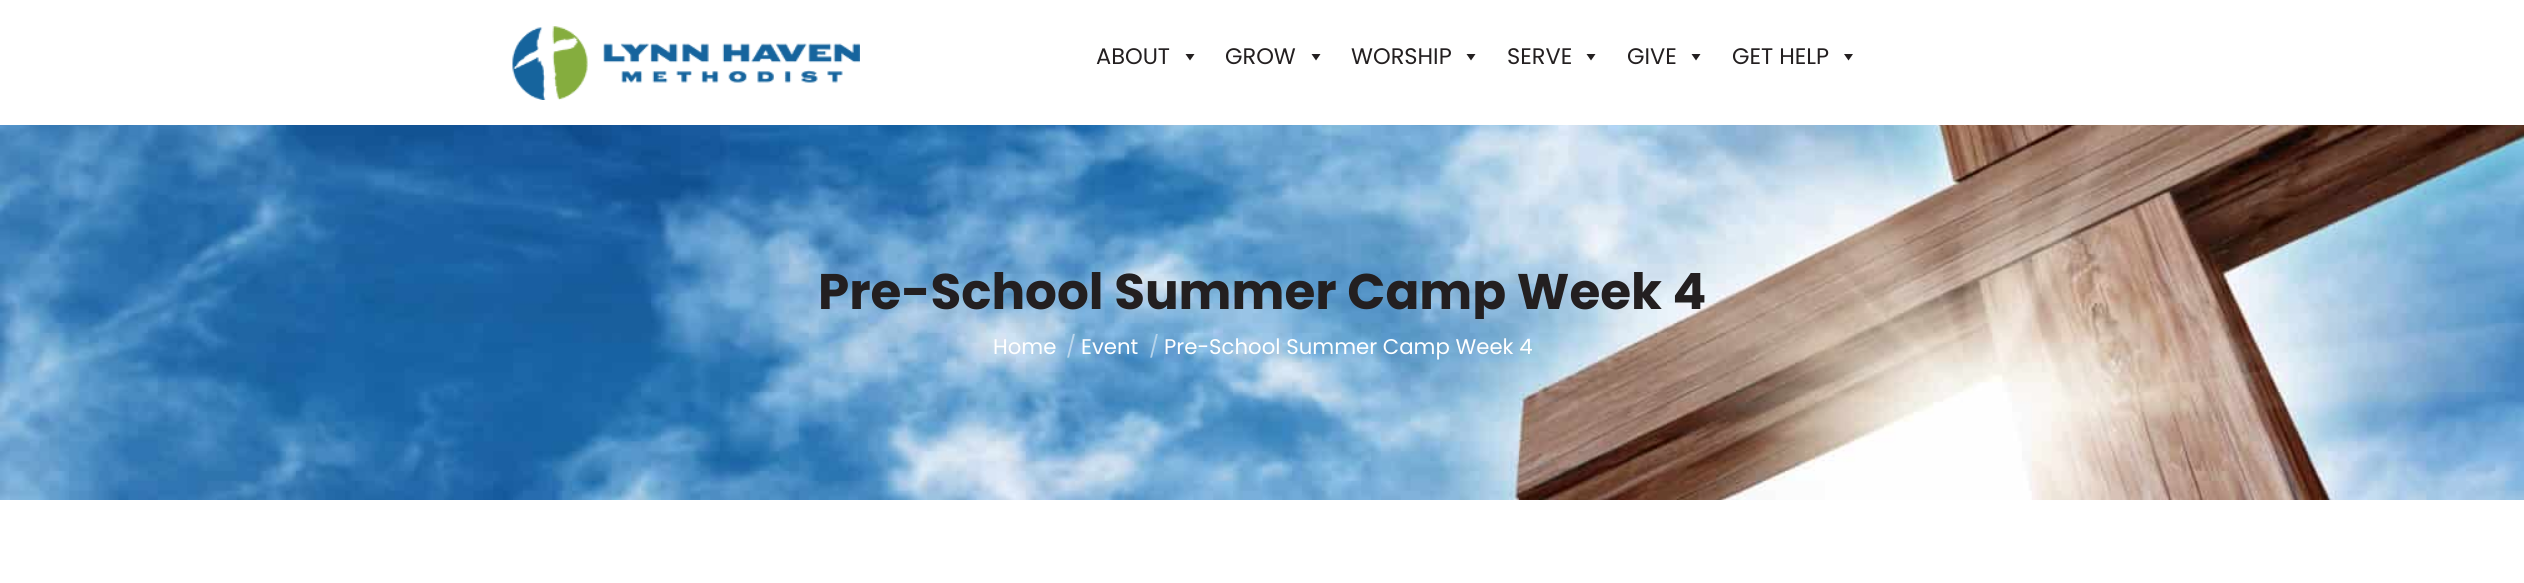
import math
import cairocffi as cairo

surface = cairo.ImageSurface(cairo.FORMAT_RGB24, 2524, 583)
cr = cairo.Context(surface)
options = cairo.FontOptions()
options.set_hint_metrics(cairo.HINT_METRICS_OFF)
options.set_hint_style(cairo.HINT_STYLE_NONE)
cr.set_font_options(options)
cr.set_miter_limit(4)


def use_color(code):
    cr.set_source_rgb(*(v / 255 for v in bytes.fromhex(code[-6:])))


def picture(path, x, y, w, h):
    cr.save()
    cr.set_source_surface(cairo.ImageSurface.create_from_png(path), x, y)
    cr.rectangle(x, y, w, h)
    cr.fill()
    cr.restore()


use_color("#ffffff")
cr.paint()
picture("img1.png", 512, 26, 348, 74)
cr.select_font_face("Poppins")
cr.set_font_size(22.5)
use_color("#231f20")
cr.move_to(1096, 64)
cr.show_text("ABOUT")
cr.new_path()
cr.move_to(1194.5, 54)
cr.line_to(1190, 60.5)
cr.line_to(1185.5, 54)
cr.close_path()
cr.fill()
cr.move_to(1225, 64)
cr.show_text("GROW")
cr.new_path()
cr.move_to(1320.5, 54)
cr.line_to(1316, 60.5)
cr.line_to(1311.5, 54)
cr.close_path()
cr.fill()
cr.move_to(1351, 64)
cr.show_text("WORSHIP")
cr.new_path()
cr.move_to(1475.5, 54)
cr.line_to(1471, 60.5)
cr.line_to(1466.5, 54)
cr.close_path()
cr.fill()
cr.move_to(1507, 64)
cr.show_text("SERVE")
cr.new_path()
cr.move_to(1595.5, 54)
cr.line_to(1591, 60.5)
cr.line_to(1586.5, 54)
cr.close_path()
cr.fill()
cr.move_to(1627, 64)
cr.show_text("GIVE")
cr.new_path()
cr.move_to(1700.5, 54)
cr.line_to(1696, 60.5)
cr.line_to(1691.5, 54)
cr.close_path()
cr.fill()
cr.move_to(1732, 64)
cr.show_text("GET HELP")
cr.new_path()
cr.move_to(1853, 54)
cr.line_to(1848.5, 60.5)
cr.line_to(1844, 54)
cr.close_path()
cr.fill()
picture("img2.png", 0, 125, 2524, 375)
cr.save()
cr.rectangle(819, 264, 887, 55)
cr.clip()
cr.select_font_face("Poppins", cairo.FONT_SLANT_NORMAL, cairo.FONT_WEIGHT_BOLD)
cr.set_font_size(50)
cr.move_to(818, 309)
cr.show_text("Pre-School Summer Camp Week 4")
cr.restore()
cr.set_font_size(21.25)
use_color("#ffffff")
cr.move_to(993, 354)
cr.show_text("Home")
use_color("#bdd7ec")
cr.move_to(1066, 354)
cr.show_text("/")
use_color("#ffffff")
cr.move_to(1081, 354)
cr.show_text("Event")
use_color("#b5d3ea")
cr.move_to(1149, 354)
cr.show_text("/")
use_color("#ffffff")
cr.move_to(1164, 354)
cr.show_text("Pre-School Summer Camp Week 4")
surface.write_to_png("result.png")
